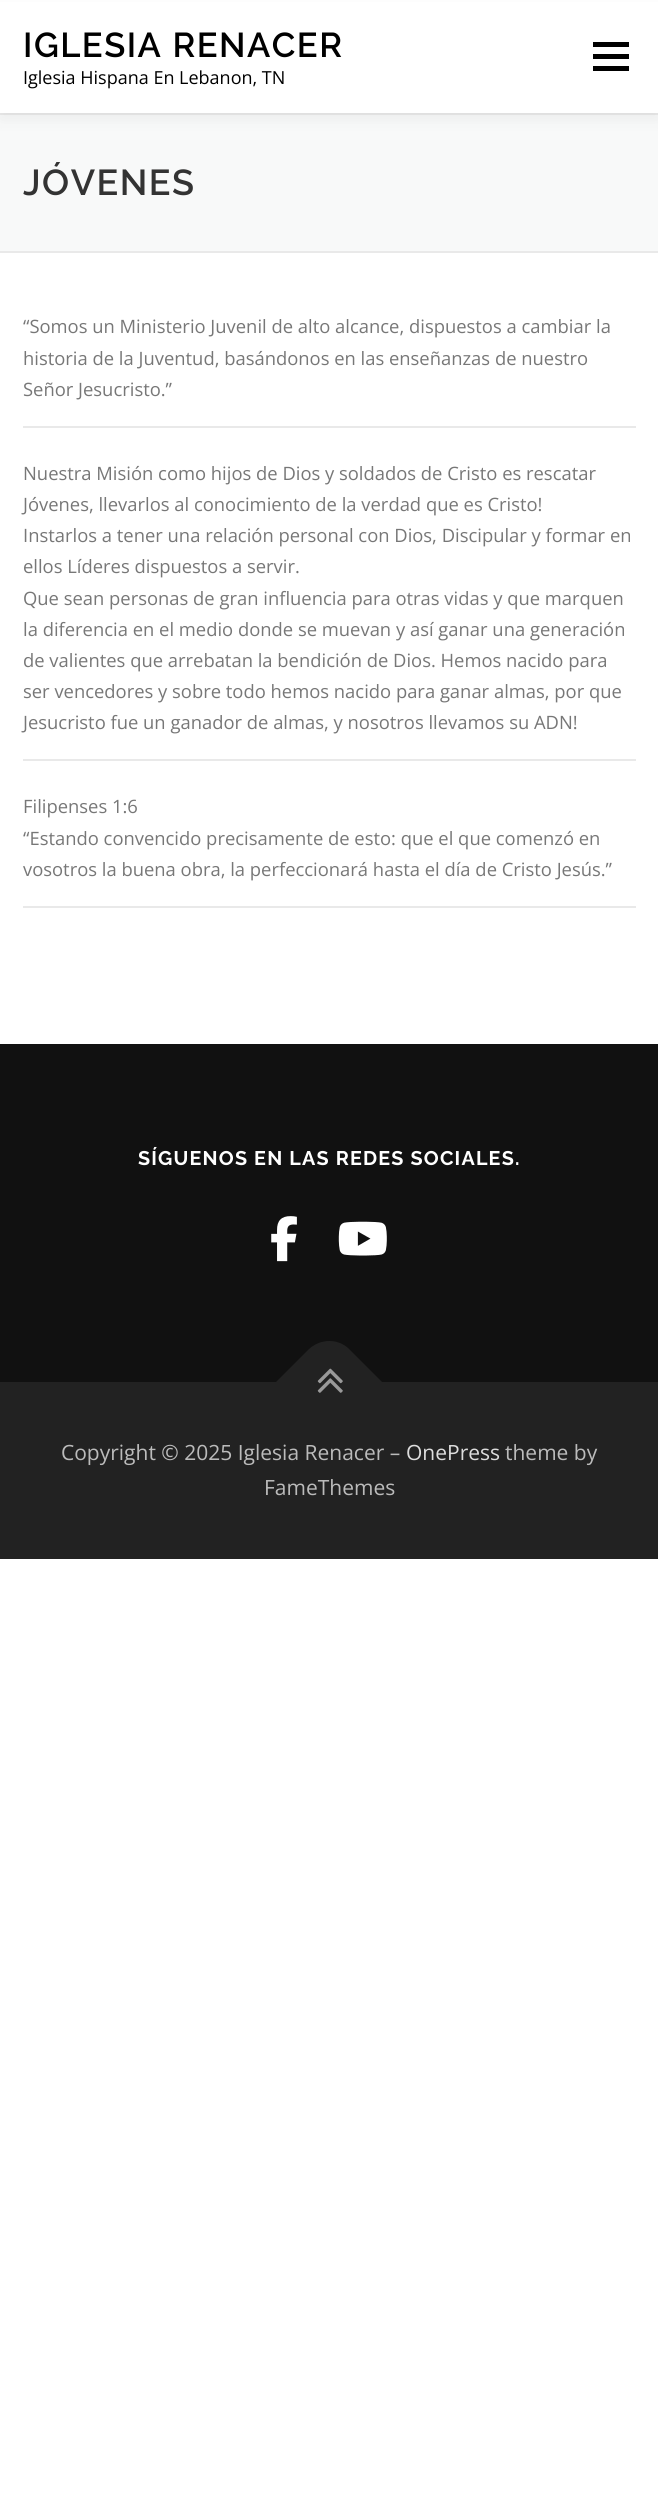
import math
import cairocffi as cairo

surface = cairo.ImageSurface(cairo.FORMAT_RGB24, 658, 2502)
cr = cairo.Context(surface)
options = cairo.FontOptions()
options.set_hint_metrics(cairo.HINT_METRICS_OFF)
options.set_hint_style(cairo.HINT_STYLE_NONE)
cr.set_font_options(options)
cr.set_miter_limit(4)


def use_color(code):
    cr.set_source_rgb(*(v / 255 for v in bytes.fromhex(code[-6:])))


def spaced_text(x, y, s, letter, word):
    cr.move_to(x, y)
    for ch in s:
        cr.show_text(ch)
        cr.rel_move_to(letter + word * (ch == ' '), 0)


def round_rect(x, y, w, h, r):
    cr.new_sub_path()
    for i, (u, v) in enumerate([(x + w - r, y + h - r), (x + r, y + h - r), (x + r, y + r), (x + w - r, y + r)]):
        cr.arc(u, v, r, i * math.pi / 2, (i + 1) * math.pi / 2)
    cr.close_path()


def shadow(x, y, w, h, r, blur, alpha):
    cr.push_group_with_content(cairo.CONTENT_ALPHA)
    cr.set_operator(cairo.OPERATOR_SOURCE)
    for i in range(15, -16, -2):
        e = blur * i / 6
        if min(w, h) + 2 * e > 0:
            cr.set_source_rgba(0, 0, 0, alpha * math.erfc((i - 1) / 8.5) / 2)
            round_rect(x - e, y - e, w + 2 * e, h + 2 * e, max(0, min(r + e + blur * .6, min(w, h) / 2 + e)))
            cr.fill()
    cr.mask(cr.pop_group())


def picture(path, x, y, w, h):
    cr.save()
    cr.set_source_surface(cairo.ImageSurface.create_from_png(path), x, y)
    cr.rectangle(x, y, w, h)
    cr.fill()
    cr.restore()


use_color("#ffffff")
cr.paint()
use_color("#f8f9f9")
cr.rectangle(0, 115, 658, 136)
cr.fill()
use_color("#e9e9e9")
cr.rectangle(0, 113, 658, 2)
cr.fill()
use_color("#323232")
shadow(0, 8, 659, 112, 0, 7.5, 0.06)
use_color("#ffffff")
cr.rectangle(0, 2, 658, 111)
cr.fill()
cr.select_font_face("Raleway SemiBold")
cr.set_font_size(34.5)
use_color("#000000")
spaced_text(23, 57, "IGLESIA RENACER", 1.5, 0)
cr.select_font_face("Open Sans")
cr.set_font_size(18)
cr.move_to(23, 84)
cr.show_text("Iglesia Hispana En Lebanon, TN")
cr.rectangle(593, 54, 36, 5)
cr.fill()
cr.rectangle(593, 42, 36, 5)
cr.fill()
cr.rectangle(593, 66, 36, 5)
cr.fill()
use_color("#e9e9e9")
cr.rectangle(0, 251, 658, 2)
cr.fill()
cr.select_font_face("Raleway SemiBold")
cr.set_font_size(36)
use_color("#333333")
spaced_text(23, 195, "JÓVENES", 1.5, 0)
cr.select_font_face("Open Sans")
cr.set_font_size(18.4)
use_color("#777777")
cr.move_to(23, 333)
cr.show_text("“Somos un Ministerio Juvenil de alto alcance, dispuestos a cambiar la")
cr.move_to(23, 365)
cr.show_text("historia de la Juventud, basándonos en las enseñanzas de nuestro")
cr.move_to(23, 396)
cr.show_text("Señor Jesucristo.”")
use_color("#e9e9e9")
cr.rectangle(23, 426, 613, 2)
cr.fill()
use_color("#777777")
cr.move_to(23, 480)
cr.show_text("Nuestra Misión como hijos de Dios y soldados de Cristo es rescatar")
cr.move_to(23, 511)
cr.show_text("Jóvenes, llevarlos al conocimiento de la verdad que es Cristo!")
cr.move_to(23, 542)
cr.show_text("Instarlos a tener una relación personal con Dios, Discipular y formar en")
cr.move_to(23, 573)
cr.show_text("ellos Líderes dispuestos a servir.")
cr.move_to(23, 605)
cr.show_text("Que sean personas de gran influencia para otras vidas y que marquen")
cr.move_to(23, 636)
cr.show_text("la diferencia en el medio donde se muevan y así ganar una generación")
cr.move_to(23, 667)
cr.show_text("de valientes que arrebatan la bendición de Dios. Hemos nacido para")
cr.move_to(23, 698)
cr.show_text("ser vencedores y sobre todo hemos nacido para ganar almas, por que")
cr.move_to(23, 729)
cr.show_text("Jesucristo fue un ganador de almas, y nosotros llevamos su ADN!")
use_color("#e9e9e9")
cr.rectangle(23, 759, 613, 2)
cr.fill()
use_color("#777777")
cr.move_to(23, 813)
cr.show_text("Filipenses 1:6")
cr.move_to(23, 845)
cr.show_text("“Estando convencido precisamente de esto: que el que comenzó en")
cr.move_to(23, 876)
cr.show_text("vosotros la buena obra, la perfeccionará hasta el día de Cristo Jesús.”")
use_color("#e9e9e9")
cr.rectangle(23, 906, 613, 2)
cr.fill()
use_color("#111111")
cr.rectangle(0, 1044, 658, 338)
cr.fill()
cr.select_font_face("Raleway", cairo.FONT_SLANT_NORMAL, cairo.FONT_WEIGHT_BOLD)
cr.set_font_size(19.7)
use_color("#ffffff")
spaced_text(138, 1165, "SÍGUENOS EN LAS REDES SOCIALES.", 1.2, 0)
picture("img1.png", 271, 1216, 26, 46)
picture("img2.png", 338, 1221, 49, 35)
use_color("#222222")
cr.rectangle(0, 1382, 658, 177)
cr.fill()
cr.new_path()
cr.move_to(276, 1382)
cr.line_to(308, 1350)
cr.curve_to(320, 1338, 339, 1338, 350, 1350)
cr.line_to(382, 1382)
cr.line_to(329, 1435)
cr.close_path()
cr.fill()
picture("img3.png", 317, 1368, 26, 25)
cr.select_font_face("Open Sans")
cr.set_font_size(21)
use_color("#bbbbbb")
cr.move_to(61, 1460)
cr.show_text("Copyright © 2025 Iglesia Renacer –")
use_color("#dddddd")
cr.move_to(406, 1460)
cr.show_text("OnePress")
use_color("#bbbbbb")
cr.move_to(505, 1460)
cr.show_text("theme by")
cr.move_to(264, 1495)
cr.show_text("FameThemes")
surface.write_to_png("result.png")
